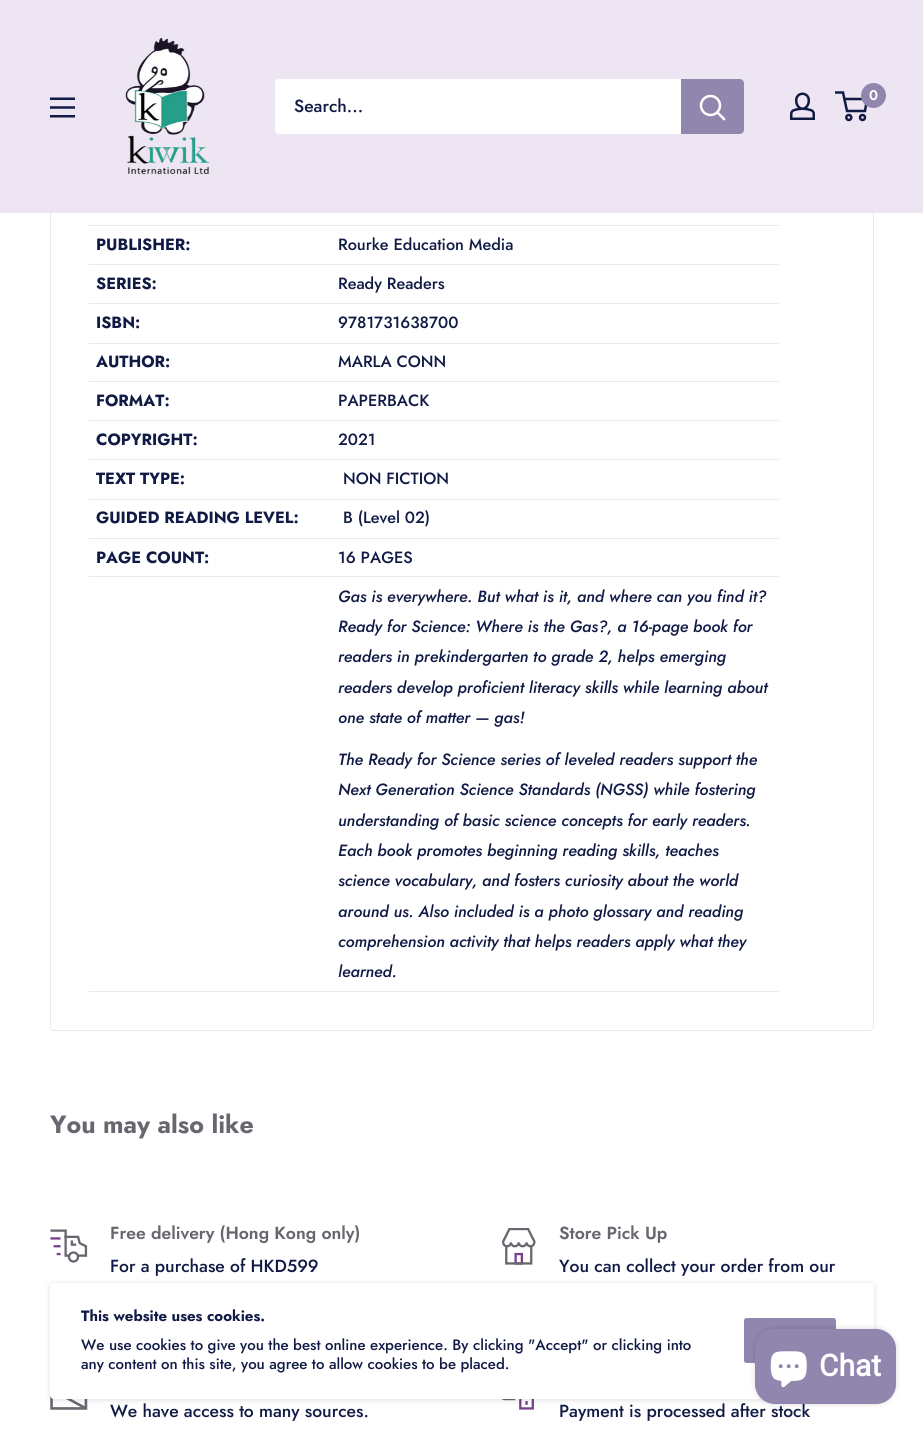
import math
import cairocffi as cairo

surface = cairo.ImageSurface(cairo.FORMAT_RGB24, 923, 1429)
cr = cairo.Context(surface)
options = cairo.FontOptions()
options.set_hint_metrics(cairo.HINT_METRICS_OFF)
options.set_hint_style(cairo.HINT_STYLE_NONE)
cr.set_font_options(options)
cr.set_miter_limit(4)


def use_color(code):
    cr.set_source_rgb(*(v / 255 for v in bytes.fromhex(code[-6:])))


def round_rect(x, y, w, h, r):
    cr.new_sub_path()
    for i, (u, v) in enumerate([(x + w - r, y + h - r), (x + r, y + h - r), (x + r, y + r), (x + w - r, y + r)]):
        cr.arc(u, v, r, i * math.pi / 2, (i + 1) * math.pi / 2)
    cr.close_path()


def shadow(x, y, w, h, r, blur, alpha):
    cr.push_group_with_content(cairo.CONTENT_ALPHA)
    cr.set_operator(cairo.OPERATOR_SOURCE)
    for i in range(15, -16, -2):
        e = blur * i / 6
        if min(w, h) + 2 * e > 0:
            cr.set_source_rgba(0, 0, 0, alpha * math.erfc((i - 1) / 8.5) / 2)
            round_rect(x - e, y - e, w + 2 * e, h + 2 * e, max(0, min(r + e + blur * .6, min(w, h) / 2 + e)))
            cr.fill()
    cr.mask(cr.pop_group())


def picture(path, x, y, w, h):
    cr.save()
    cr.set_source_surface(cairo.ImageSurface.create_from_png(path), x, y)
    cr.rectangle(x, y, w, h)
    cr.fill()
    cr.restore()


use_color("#ffffff")
cr.paint()
round_rect(50.5, 86.5, 823, 944, 3.5)
use_color("#eee5f2")
cr.set_line_width(1)
cr.stroke()
cr.rectangle(0, 0, 923, 213)
cr.fill()
picture("img1.png", 125, 37, 85, 138)
picture("img2.png", 790, 92, 25, 28)
cr.arc(848.8, 117.5, 2.5, 0, 2 * math.pi)
use_color("#101a45")
cr.set_line_width(2.5)
cr.stroke()
cr.arc(862.5, 117.5, 2.5, 0, 2 * math.pi)
cr.stroke()
cr.new_path()
cr.move_to(844, 99)
cr.line_to(867, 99)
cr.line_to(865, 111)
cr.line_to(847, 111)
cr.line_to(843, 92.5)
cr.line_to(835, 92.5)
cr.stroke()
use_color("#9186ae")
cr.arc(873.5, 95.5, 12.5, 0, 2 * math.pi)
cr.fill()
cr.select_font_face("Jost SemiBold")
cr.set_font_size(14)
use_color("#ffffff")
cr.move_to(869, 100)
cr.show_text("0")
picture("img3.png", 50, 97, 25, 21)
round_rect(275, 79, 469, 55, 4)
cr.fill()
cr.select_font_face("Jost Medium")
cr.set_font_size(17.5)
use_color("#101a45")
cr.move_to(294, 112)
cr.show_text("Search...")
use_color("#9186ae")
cr.new_path()
cr.move_to(681, 79)
cr.line_to(740, 79)
cr.curve_to(742, 79, 744, 81, 744, 83)
cr.line_to(744, 130)
cr.curve_to(744, 132, 742, 134, 740, 134)
cr.line_to(681, 134)
cr.close_path()
cr.fill()
cr.new_path()
cr.move_to(724, 119)
cr.line_to(717.5, 112.5)
use_color("#ffffff")
cr.set_line_cap(cairo.LINE_CAP_SQUARE)
cr.stroke()
cr.arc(710.5, 105.5, 9.5, 0, 2 * math.pi)
cr.set_line_cap(cairo.LINE_CAP_BUTT)
cr.stroke()
use_color("#eee5f2")
cr.rectangle(89, 225, 690, 1)
cr.fill()
cr.select_font_face("Jost", cairo.FONT_SLANT_NORMAL, cairo.FONT_WEIGHT_BOLD)
cr.set_font_size(16.25)
use_color("#101a45")
cr.move_to(96, 250)
cr.show_text("PUBLISHER:")
cr.select_font_face("Jost Medium")
cr.move_to(338, 250)
cr.show_text("Rourke Education Media")
use_color("#eee5f2")
cr.rectangle(89, 264, 690, 1)
cr.fill()
cr.select_font_face("Jost", cairo.FONT_SLANT_NORMAL, cairo.FONT_WEIGHT_BOLD)
use_color("#101a45")
cr.move_to(96, 289)
cr.show_text("SERIES:")
cr.select_font_face("Jost Medium")
cr.move_to(338, 289)
cr.show_text("Ready Readers")
use_color("#eee5f2")
cr.rectangle(89, 303, 690, 1)
cr.fill()
cr.select_font_face("Jost", cairo.FONT_SLANT_NORMAL, cairo.FONT_WEIGHT_BOLD)
use_color("#101a45")
cr.move_to(96, 328)
cr.show_text("ISBN:")
cr.select_font_face("Jost Medium")
cr.move_to(338, 328)
cr.show_text("9781731638700")
use_color("#eee5f2")
cr.rectangle(89, 343, 690, 1)
cr.fill()
cr.select_font_face("Jost", cairo.FONT_SLANT_NORMAL, cairo.FONT_WEIGHT_BOLD)
use_color("#101a45")
cr.move_to(96, 367)
cr.show_text("AUTHOR:")
cr.select_font_face("Jost Medium")
cr.move_to(338, 367)
cr.show_text("MARLA CONN")
use_color("#eee5f2")
cr.rectangle(89, 381, 690, 1)
cr.fill()
cr.select_font_face("Jost", cairo.FONT_SLANT_NORMAL, cairo.FONT_WEIGHT_BOLD)
use_color("#101a45")
cr.move_to(96, 406)
cr.show_text("FORMAT:")
cr.select_font_face("Jost Medium")
cr.move_to(338, 406)
cr.show_text("PAPERBACK")
use_color("#eee5f2")
cr.rectangle(89, 420, 690, 1)
cr.fill()
cr.select_font_face("Jost", cairo.FONT_SLANT_NORMAL, cairo.FONT_WEIGHT_BOLD)
use_color("#101a45")
cr.move_to(96, 445)
cr.show_text("COPYRIGHT:")
cr.select_font_face("Jost Medium")
cr.move_to(338, 445)
cr.show_text("2021")
use_color("#eee5f2")
cr.rectangle(89, 459, 690, 1)
cr.fill()
cr.select_font_face("Jost", cairo.FONT_SLANT_NORMAL, cairo.FONT_WEIGHT_BOLD)
use_color("#101a45")
cr.move_to(96, 484)
cr.show_text("TEXT TYPE:")
cr.select_font_face("Jost Medium")
cr.move_to(343, 484)
cr.show_text("NON FICTION")
use_color("#eee5f2")
cr.rectangle(89, 499, 690, 1)
cr.fill()
cr.select_font_face("Jost", cairo.FONT_SLANT_NORMAL, cairo.FONT_WEIGHT_BOLD)
use_color("#101a45")
cr.move_to(96, 523)
cr.show_text("GUIDED READING LEVEL:")
cr.select_font_face("Jost Medium")
cr.move_to(343, 523)
cr.show_text("B (Level 02)")
use_color("#eee5f2")
cr.rectangle(89, 538, 690, 1)
cr.fill()
cr.select_font_face("Jost", cairo.FONT_SLANT_NORMAL, cairo.FONT_WEIGHT_BOLD)
use_color("#101a45")
cr.move_to(96, 563)
cr.show_text("PAGE COUNT:")
cr.select_font_face("Jost Medium")
cr.move_to(338, 563)
cr.show_text("16 PAGES")
use_color("#eee5f2")
cr.rectangle(89, 576, 690, 1)
cr.fill()
cr.rectangle(89, 991, 690, 1)
cr.fill()
cr.select_font_face("Jost Medium", cairo.FONT_SLANT_ITALIC)
use_color("#101a45")
cr.move_to(338, 602)
cr.show_text("Gas is everywhere. But what is it, and where can you find it?")
cr.move_to(338, 632)
cr.show_text("Ready for Science: Where is the Gas?, a 16-page book for")
cr.move_to(338, 662)
cr.show_text("readers in prekindergarten to grade 2, helps emerging")
cr.move_to(338, 693)
cr.show_text("readers develop proficient literacy skills while learning about")
cr.move_to(338, 723)
cr.show_text("one state of matter — gas!")
cr.move_to(338, 765)
cr.show_text("The Ready for Science series of leveled readers support the")
cr.move_to(338, 795)
cr.show_text("Next Generation Science Standards (NGSS) while fostering")
cr.move_to(338, 826)
cr.show_text("understanding of basic science concepts for early readers.")
cr.move_to(338, 856)
cr.show_text("Each book promotes beginning reading skills, teaches")
cr.move_to(338, 886)
cr.show_text("science vocabulary, and fosters curiosity about the world")
cr.move_to(338, 917)
cr.show_text("around us. Also included is a photo glossary and reading")
cr.move_to(338, 947)
cr.show_text("comprehension activity that helps readers apply what they")
cr.move_to(338, 977)
cr.show_text("learned.")
cr.select_font_face("Jost", cairo.FONT_SLANT_NORMAL, cairo.FONT_WEIGHT_BOLD)
cr.set_font_size(25)
use_color("#676770")
cr.move_to(50, 1133)
cr.show_text("You may also like")
picture("img4.png", 50, 1229, 38, 34)
cr.select_font_face("Jost SemiBold")
cr.set_font_size(17.5)
cr.move_to(110, 1239)
cr.show_text("Free delivery (Hong Kong only)")
cr.select_font_face("Jost Medium")
use_color("#101a45")
cr.move_to(110, 1272)
cr.show_text("For a purchase of HKD599")
picture("img5.png", 502, 1228, 34, 37)
cr.select_font_face("Jost SemiBold")
use_color("#676770")
cr.move_to(559, 1239)
cr.show_text("Store Pick Up")
cr.select_font_face("Jost Medium")
use_color("#101a45")
cr.move_to(559, 1272)
cr.show_text("You can collect your order from our")
picture("img6.png", 50, 1395, 38, 15)
cr.move_to(110, 1417)
cr.show_text("We have access to many sources.")
picture("img7.png", 501, 1399, 33, 11)
cr.move_to(559, 1417)
cr.show_text("Payment is processed after stock")
use_color("#000000")
shadow(49, 1283, 826, 118, 5, 2.5, 0.1)
use_color("#ffffff")
round_rect(50, 1283, 824, 116, 4)
cr.fill()
cr.select_font_face("Jost", cairo.FONT_SLANT_NORMAL, cairo.FONT_WEIGHT_BOLD)
cr.set_font_size(15)
use_color("#101a45")
cr.move_to(81, 1321)
cr.show_text("This website uses cookies.")
cr.select_font_face("Jost Medium")
cr.move_to(81, 1350)
cr.show_text("We use cookies to give you the best online experience. By clicking \"Accept\" or clicking into")
cr.move_to(81, 1369)
cr.show_text("any content on this site, you agree to allow cookies to be placed.")
use_color("#9186ae")
round_rect(744, 1318, 92, 45, 2.5)
cr.fill()
use_color("#000000")
shadow(755, 1329, 141, 75, 20, 3, 0.15)
use_color("#9186ae")
round_rect(755, 1329, 141, 75, 20)
cr.fill()
picture("img8.png", 770, 1351, 37, 37)
cr.select_font_face("Roboto", cairo.FONT_SLANT_NORMAL, cairo.FONT_WEIGHT_BOLD)
cr.set_font_size(30)
use_color("#ffffff")
cr.move_to(819, 1376)
cr.show_text("Chat")
surface.write_to_png("result.png")
